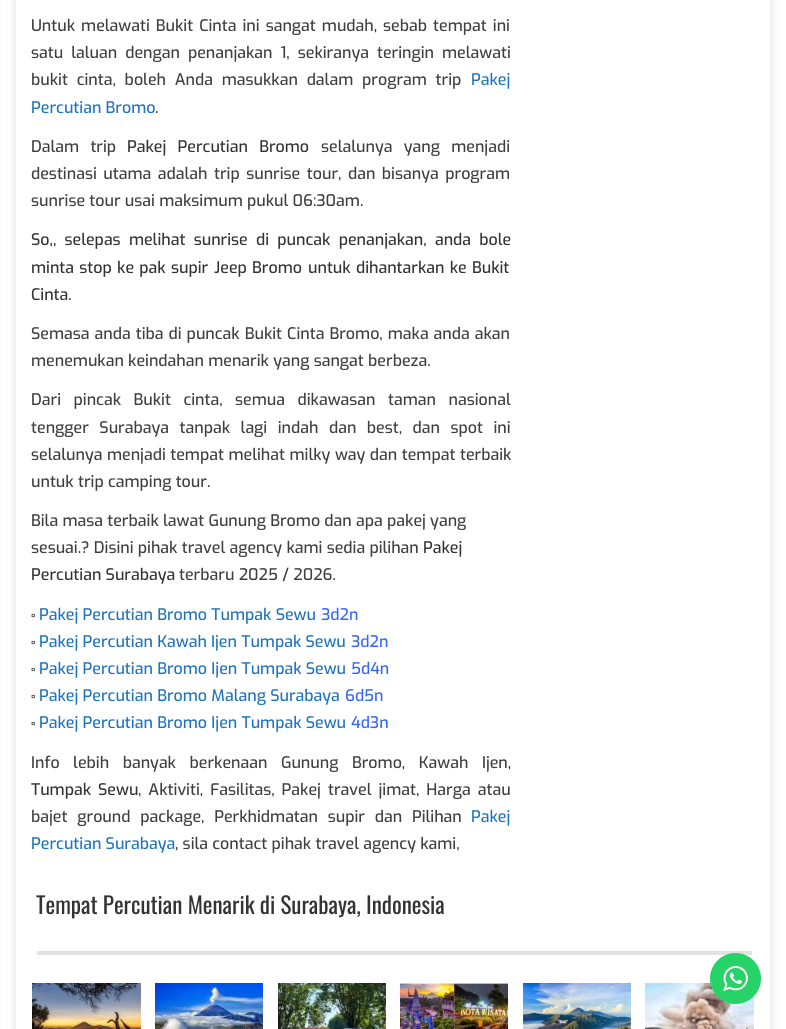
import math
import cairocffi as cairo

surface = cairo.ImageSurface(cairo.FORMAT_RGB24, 786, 1029)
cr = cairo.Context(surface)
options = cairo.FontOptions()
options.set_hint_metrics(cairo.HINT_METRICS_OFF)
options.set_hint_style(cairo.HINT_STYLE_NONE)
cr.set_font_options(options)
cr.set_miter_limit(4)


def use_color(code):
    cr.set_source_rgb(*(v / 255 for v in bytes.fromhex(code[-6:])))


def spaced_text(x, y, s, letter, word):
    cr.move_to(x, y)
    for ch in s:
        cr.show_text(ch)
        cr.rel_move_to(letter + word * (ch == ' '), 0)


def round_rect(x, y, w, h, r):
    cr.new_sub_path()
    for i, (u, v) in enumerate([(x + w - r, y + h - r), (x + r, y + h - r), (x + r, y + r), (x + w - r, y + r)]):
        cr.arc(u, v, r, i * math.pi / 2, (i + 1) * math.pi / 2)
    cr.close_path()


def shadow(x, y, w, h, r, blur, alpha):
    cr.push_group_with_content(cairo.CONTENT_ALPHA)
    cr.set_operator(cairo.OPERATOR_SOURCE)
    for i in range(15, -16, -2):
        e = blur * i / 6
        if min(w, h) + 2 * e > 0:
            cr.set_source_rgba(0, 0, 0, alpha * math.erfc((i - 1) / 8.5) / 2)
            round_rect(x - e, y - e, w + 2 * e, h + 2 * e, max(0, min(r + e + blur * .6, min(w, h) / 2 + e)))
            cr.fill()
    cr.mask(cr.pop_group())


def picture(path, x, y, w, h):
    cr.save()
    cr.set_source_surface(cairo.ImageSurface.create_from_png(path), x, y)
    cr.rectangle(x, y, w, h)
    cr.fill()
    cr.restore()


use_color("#ffffff")
cr.paint()
cr.save()
cr.set_fill_rule(cairo.FILL_RULE_EVEN_ODD)
cr.new_path()
cr.move_to(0, 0)
cr.line_to(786, 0)
cr.line_to(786, 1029)
cr.line_to(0, 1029)
cr.close_path()
cr.move_to(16, -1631)
cr.line_to(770, -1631)
cr.line_to(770, 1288)
cr.line_to(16, 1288)
cr.close_path()
cr.clip()
use_color("#323232")
shadow(16, -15, 754, 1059, 0, 5, 0.17)
cr.restore()
cr.select_font_face("Exo Medium")
cr.set_font_size(16)
use_color("#3f3f3f")
spaced_text(31, 31, "Untuk melawati Bukit Cinta ini sangat mudah, sebab tempat ini", 0, 1.75)
spaced_text(31, 58, "satu laluan dengan penanjakan 1, sekiranya teringin melawati", 0, 3.75)
spaced_text(31, 85, "bukit cinta, boleh Anda masukkan dalam program trip", 0, 4.5)
use_color("#1e73be")
cr.move_to(471, 85)
cr.show_text("Pakej")
cr.move_to(31, 113)
cr.show_text("Percutian Bromo")
use_color("#3f3f3f")
cr.move_to(155, 113)
cr.show_text(".")
spaced_text(31, 152, "Dalam trip", 0, 7)
use_color("#333333")
spaced_text(127, 152, "Pakej Percutian Bromo", 0, 7)
use_color("#3f3f3f")
spaced_text(321, 152, "selalunya yang menjadi", 0, 7)
spaced_text(31, 179, "destinasi utama adalah trip sunrise tour, dan bisanya program", 0, 2.25)
cr.move_to(31, 206)
cr.show_text("sunrise tour usai maksimum pukul 06:30am.")
use_color("#333333")
spaced_text(31, 245, "So,, selepas melihat sunrise di puncak penanjakan, anda bole", 0, 4)
spaced_text(31, 273, "minta stop ke pak supir", 0, 1)
spaced_text(214, 273, "Jeep Bromo", 0, 1)
spaced_text(308, 273, "untuk dihantarkan ke Bukit", 0, 1)
cr.move_to(31, 300)
cr.show_text("Cinta.")
use_color("#3f3f3f")
spaced_text(31, 339, "Semasa anda tiba di puncak Bukit Cinta Bromo, maka anda akan", 0, 0.75)
cr.move_to(31, 366)
cr.show_text("menemukan keindahan menarik yang sangat berbeza.")
spaced_text(31, 405, "Dari pincak Bukit cinta, semua dikawasan taman nasional", 0, 8.25)
spaced_text(31, 433, "tengger Surabaya tanpak lagi indah dan best, dan spot ini", 0, 6.25)
spaced_text(31, 460, "selalunya menjadi tempat melihat milky way dan tempat terbaik", 0, 0.25)
cr.move_to(31, 487)
cr.show_text("untuk trip camping tour.")
cr.move_to(31, 526)
cr.show_text("Bila masa terbaik lawat Gunung Bromo dan apa pakej yang")
cr.move_to(31, 553)
cr.show_text("sesuai.? Disini pihak travel agency kami sedia pilihan")
use_color("#333333")
cr.move_to(423, 553)
cr.show_text("Pakej")
cr.move_to(31, 580)
cr.show_text("Percutian Surabaya")
use_color("#3f3f3f")
cr.move_to(179, 580)
cr.show_text("terbaru 2025 / 2026.")
cr.select_font_face("FreeSans")
cr.move_to(31, 620)
cr.show_text("⬞")
cr.select_font_face("Exo Medium")
use_color("#1e73be")
cr.move_to(39, 620)
cr.show_text("Pakej Percutian Bromo Tumpak Sewu")
use_color("#3366ff")
cr.move_to(321, 620)
cr.show_text("3d2n")
cr.select_font_face("FreeSans")
use_color("#3f3f3f")
cr.move_to(31, 647)
cr.show_text("⬞")
cr.select_font_face("Exo Medium")
use_color("#1e73be")
cr.move_to(39, 647)
cr.show_text("Pakej Percutian Kawah Ijen Tumpak Sewu")
use_color("#3366ff")
cr.move_to(351, 647)
cr.show_text("3d2n")
cr.select_font_face("FreeSans")
use_color("#3f3f3f")
cr.move_to(31, 674)
cr.show_text("⬞")
cr.select_font_face("Exo Medium")
use_color("#1e73be")
cr.move_to(39, 674)
cr.show_text("Pakej Percutian Bromo Ijen Tumpak Sewu")
use_color("#3366ff")
cr.move_to(351, 674)
cr.show_text("5d4n")
cr.select_font_face("FreeSans")
use_color("#3f3f3f")
cr.move_to(31, 701)
cr.show_text("⬞")
cr.select_font_face("Exo Medium")
use_color("#1e73be")
cr.move_to(39, 701)
cr.show_text("Pakej Percutian Bromo Malang Surabaya")
use_color("#3366ff")
cr.move_to(345, 701)
cr.show_text("6d5n")
cr.select_font_face("FreeSans")
use_color("#3f3f3f")
cr.move_to(31, 728)
cr.show_text("⬞")
cr.select_font_face("Exo Medium")
use_color("#1e73be")
cr.move_to(39, 728)
cr.show_text("Pakej Percutian Bromo Ijen Tumpak Sewu")
use_color("#3366ff")
cr.move_to(351, 728)
cr.show_text("4d3n")
use_color("#3f3f3f")
spaced_text(31, 768, "Info lebih banyak berkenaan Gunung Bromo, Kawah Ijen,", 0, 9.25)
use_color("#333333")
spaced_text(31, 795, "Tumpak Sewu", 0, 2.75)
use_color("#3f3f3f")
spaced_text(138, 795, ", Aktiviti, Fasilitas, Pakej travel jimat, Harga atau", 0, 2.75)
spaced_text(31, 822, "bajet ground package, Perkhidmatan supir dan Pilihan", 0, 5.5)
use_color("#1e73be")
cr.move_to(471, 822)
cr.show_text("Pakej")
cr.move_to(31, 849)
cr.show_text("Percutian Surabaya")
use_color("#3f3f3f")
cr.move_to(175, 849)
cr.show_text(", sila contact pihak travel agency kami,")
cr.select_font_face("Oswald")
cr.set_font_size(23)
use_color("#333333")
cr.move_to(36, 914)
cr.show_text("Tempat Percutian Menarik di Surabaya, Indonesia")
use_color("#e2e2e2")
cr.rectangle(37, 951, 715, 4)
cr.fill()
picture("img1.png", 32, 983, 109, 46)
picture("img2.png", 155, 983, 108, 46)
picture("img3.png", 278, 983, 108, 46)
picture("img4.png", 400, 983, 108, 46)
picture("img5.png", 523, 983, 108, 46)
picture("img6.png", 645, 983, 109, 46)
use_color("#25d366")
cr.arc(735.5, 978.5, 25.5, 0, 2 * math.pi)
cr.fill()
picture("img7.png", 723, 966, 25, 25)
surface.write_to_png("result.png")
